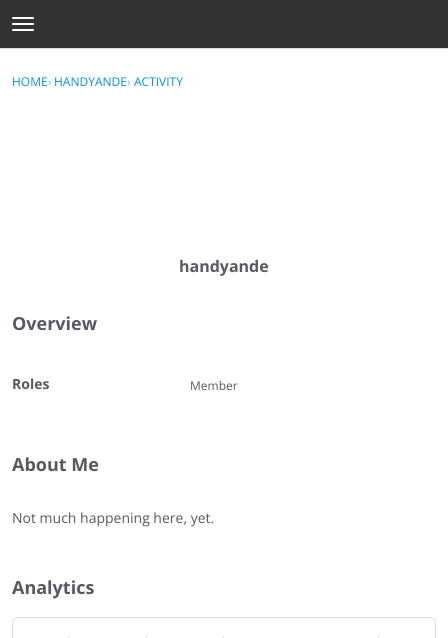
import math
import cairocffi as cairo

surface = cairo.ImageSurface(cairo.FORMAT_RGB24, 448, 638)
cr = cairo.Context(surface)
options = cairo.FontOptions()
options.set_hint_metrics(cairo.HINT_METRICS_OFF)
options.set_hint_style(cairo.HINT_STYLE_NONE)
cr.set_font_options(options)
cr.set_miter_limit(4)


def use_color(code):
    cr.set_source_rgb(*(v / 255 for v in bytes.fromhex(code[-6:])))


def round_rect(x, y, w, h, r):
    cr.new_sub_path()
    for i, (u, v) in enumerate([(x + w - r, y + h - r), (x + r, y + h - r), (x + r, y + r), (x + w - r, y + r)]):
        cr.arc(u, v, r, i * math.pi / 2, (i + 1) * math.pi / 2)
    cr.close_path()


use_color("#ffffff")
cr.paint()
use_color("#333333")
cr.rectangle(0, 0, 448, 48)
cr.fill()
use_color("#d6d7d9")
cr.rectangle(0, 48, 448, 1)
cr.fill()
use_color("#ffffff")
round_rect(12, 23, 22, 2, 1)
cr.fill()
round_rect(12, 17, 22, 2, 1)
cr.fill()
round_rect(12, 29, 22, 2, 1)
cr.fill()
cr.select_font_face("Open Sans")
cr.set_font_size(12)
use_color("#0291db")
cr.move_to(12, 86)
cr.show_text("HOME")
use_color("#aaadb1")
cr.move_to(48, 86)
cr.show_text("›")
use_color("#0291db")
cr.move_to(54, 86)
cr.show_text("HANDYANDE")
use_color("#aaadb1")
cr.move_to(127, 86)
cr.show_text("›")
use_color("#0291db")
cr.move_to(134, 86)
cr.show_text("ACTIVITY")
cr.select_font_face("Open Sans", cairo.FONT_SLANT_NORMAL, cairo.FONT_WEIGHT_BOLD)
cr.set_font_size(16)
use_color("#555a62")
cr.move_to(179, 272)
cr.show_text("handyande")
cr.set_font_size(18)
cr.move_to(12, 330)
cr.show_text("Overview")
cr.set_font_size(14)
cr.move_to(12, 389)
cr.show_text("Roles")
cr.select_font_face("Open Sans")
cr.set_font_size(12)
cr.move_to(190, 390)
cr.show_text("Member")
cr.select_font_face("Open Sans", cairo.FONT_SLANT_NORMAL, cairo.FONT_WEIGHT_BOLD)
cr.set_font_size(18)
cr.move_to(12, 471)
cr.show_text("About Me")
cr.select_font_face("Open Sans")
cr.set_font_size(14)
cr.move_to(12, 523)
cr.show_text("Not much happening here, yet.")
cr.select_font_face("Open Sans", cairo.FONT_SLANT_NORMAL, cairo.FONT_WEIGHT_BOLD)
cr.set_font_size(18)
cr.move_to(12, 594)
cr.show_text("Analytics")
round_rect(12.5, 617.5, 423, 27, 5.5)
use_color("#dddee0")
cr.set_line_width(1)
cr.stroke()
cr.rectangle(146, 636, 1, 2)
cr.fill()
cr.rectangle(68, 636, 1, 2)
cr.fill()
cr.rectangle(223, 636, 1, 2)
cr.fill()
cr.rectangle(378, 636, 1, 2)
cr.fill()
surface.write_to_png("result.png")
